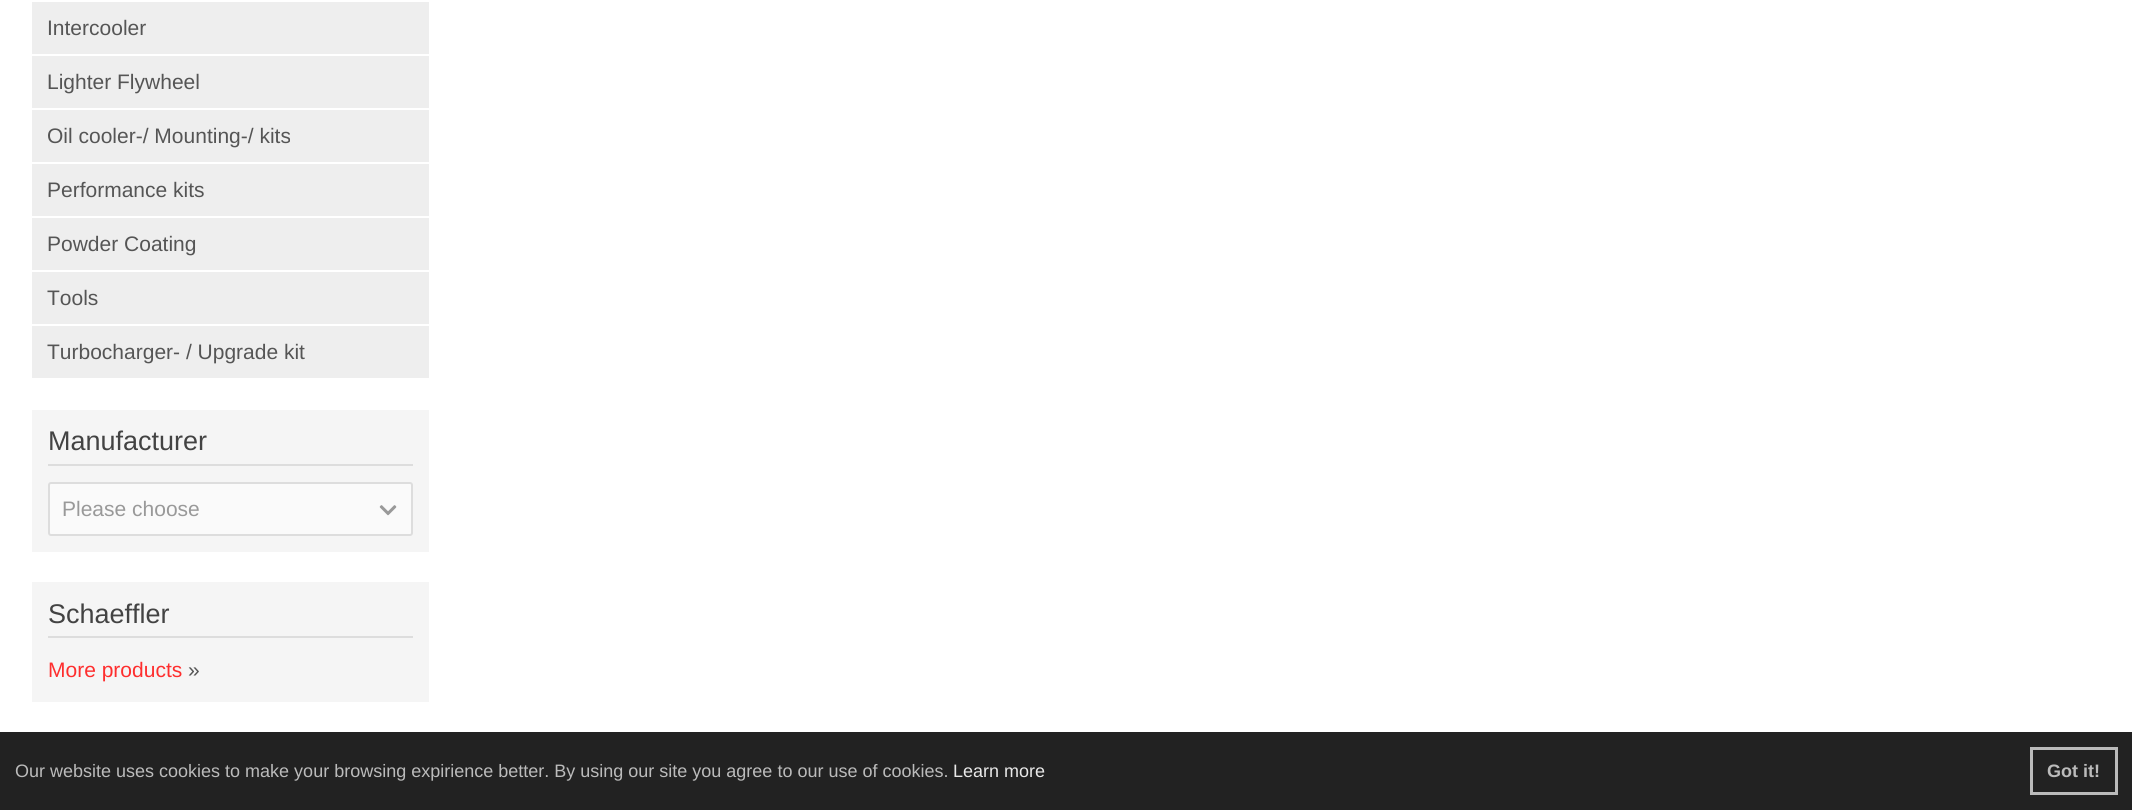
import math
import cairocffi as cairo

surface = cairo.ImageSurface(cairo.FORMAT_RGB24, 2132, 810)
cr = cairo.Context(surface)
options = cairo.FontOptions()
options.set_hint_metrics(cairo.HINT_METRICS_OFF)
options.set_hint_style(cairo.HINT_STYLE_NONE)
cr.set_font_options(options)
cr.set_miter_limit(4)


def use_color(code):
    cr.set_source_rgb(*(v / 255 for v in bytes.fromhex(code[-6:])))


def round_rect(x, y, w, h, r):
    cr.new_sub_path()
    for i, (u, v) in enumerate([(x + w - r, y + h - r), (x + r, y + h - r), (x + r, y + r), (x + w - r, y + r)]):
        cr.arc(u, v, r, i * math.pi / 2, (i + 1) * math.pi / 2)
    cr.close_path()


def picture(path, x, y, w, h):
    cr.save()
    cr.set_source_surface(cairo.ImageSurface.create_from_png(path), x, y)
    cr.rectangle(x, y, w, h)
    cr.fill()
    cr.restore()


use_color("#ffffff")
cr.paint()
use_color("#eeeeee")
cr.rectangle(32, 2, 397, 52)
cr.fill()
cr.select_font_face("Liberation Sans")
cr.set_font_size(21)
use_color("#555555")
cr.move_to(47, 35)
cr.show_text("Intercooler")
use_color("#eeeeee")
cr.rectangle(32, 56, 397, 52)
cr.fill()
use_color("#555555")
cr.move_to(47, 89)
cr.show_text("Lighter Flywheel")
use_color("#eeeeee")
cr.rectangle(32, 110, 397, 52)
cr.fill()
use_color("#555555")
cr.move_to(47, 143)
cr.show_text("Oil cooler-/ Mounting-/ kits")
use_color("#eeeeee")
cr.rectangle(32, 164, 397, 52)
cr.fill()
use_color("#555555")
cr.move_to(47, 197)
cr.show_text("Performance kits")
use_color("#eeeeee")
cr.rectangle(32, 218, 397, 52)
cr.fill()
use_color("#555555")
cr.move_to(47, 251)
cr.show_text("Powder Coating")
use_color("#eeeeee")
cr.rectangle(32, 272, 397, 52)
cr.fill()
use_color("#555555")
cr.move_to(47, 305)
cr.show_text("Tools")
use_color("#eeeeee")
cr.rectangle(32, 326, 397, 52)
cr.fill()
use_color("#555555")
cr.move_to(47, 359)
cr.show_text("Turbocharger- / Upgrade kit")
use_color("#f5f5f5")
cr.rectangle(32, 410, 397, 142)
cr.fill()
cr.set_font_size(27)
use_color("#434343")
cr.move_to(48, 450)
cr.show_text("Manufacturer")
use_color("#dddddd")
cr.rectangle(48, 464, 365, 2)
cr.fill()
use_color("#fafafa")
round_rect(49, 483, 363, 52, 2)
cr.fill_preserve()
use_color("#dddddd")
cr.stroke()
cr.set_font_size(21)
use_color("#999999")
cr.move_to(62, 516)
cr.show_text("Please choose")
picture("img1.png", 379, 505, 18, 11)
use_color("#f5f5f5")
cr.rectangle(32, 582, 397, 120)
cr.fill()
cr.set_font_size(27)
use_color("#434343")
cr.move_to(48, 623)
cr.show_text("Schaeffler")
use_color("#dddddd")
cr.rectangle(48, 636, 365, 2)
cr.fill()
cr.set_font_size(21)
use_color("#fe2e2e")
cr.move_to(48, 677)
cr.show_text("More products")
use_color("#555555")
cr.move_to(188, 677)
cr.show_text("»")
use_color("#222222")
cr.rectangle(0, 732, 2132, 78)
cr.fill()
cr.set_font_size(18)
use_color("#bbbbbb")
cr.move_to(15, 777)
cr.show_text("Our website uses cookies to make your browsing expirience better. By using our site you agree to our use of cookies.")
use_color("#e9e9e9")
cr.move_to(953, 777)
cr.show_text("Learn more")
cr.rectangle(2031.5, 748.5, 85, 45)
use_color("#bbbbbb")
cr.set_line_width(3)
cr.stroke()
cr.select_font_face("Liberation Sans", cairo.FONT_SLANT_NORMAL, cairo.FONT_WEIGHT_BOLD)
cr.move_to(2047, 777)
cr.show_text("Got it!")
surface.write_to_png("result.png")
